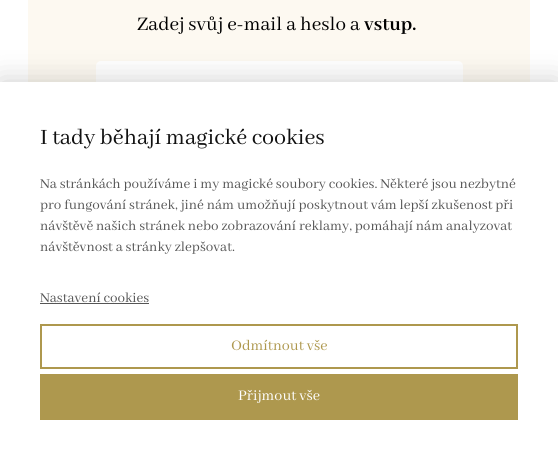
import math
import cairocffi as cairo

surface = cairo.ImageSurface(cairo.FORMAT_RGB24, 558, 460)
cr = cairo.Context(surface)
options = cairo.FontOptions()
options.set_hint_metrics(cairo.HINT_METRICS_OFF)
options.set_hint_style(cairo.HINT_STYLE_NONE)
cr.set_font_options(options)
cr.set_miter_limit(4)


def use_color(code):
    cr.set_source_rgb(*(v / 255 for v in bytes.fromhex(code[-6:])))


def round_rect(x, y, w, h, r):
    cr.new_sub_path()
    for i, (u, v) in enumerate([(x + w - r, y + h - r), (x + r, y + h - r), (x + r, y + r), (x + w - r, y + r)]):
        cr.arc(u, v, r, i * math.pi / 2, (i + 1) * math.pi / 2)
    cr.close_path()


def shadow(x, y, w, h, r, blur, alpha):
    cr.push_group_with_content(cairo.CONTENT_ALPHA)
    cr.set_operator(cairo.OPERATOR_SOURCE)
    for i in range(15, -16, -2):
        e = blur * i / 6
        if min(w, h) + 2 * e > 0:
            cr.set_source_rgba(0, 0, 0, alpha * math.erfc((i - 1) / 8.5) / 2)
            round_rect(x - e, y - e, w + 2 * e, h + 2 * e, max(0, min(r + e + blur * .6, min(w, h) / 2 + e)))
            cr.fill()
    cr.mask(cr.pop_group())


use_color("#ffffff")
cr.paint()
use_color("#fdf9f1")
cr.rectangle(28, 0, 502, 82)
cr.fill()
cr.select_font_face("Abhaya Libre")
cr.set_font_size(21)
use_color("#000000")
cr.move_to(137, 30)
cr.show_text("Zadej svůj e-mail a heslo a")
cr.select_font_face("Abhaya Libre", cairo.FONT_SLANT_NORMAL, cairo.FONT_WEIGHT_BOLD)
cr.move_to(364, 30)
cr.show_text("vstup.")
use_color("#ffffff")
round_rect(96, 61, 367, 51, 5)
cr.fill()
use_color("#000000")
shadow(0, 82, 558, 378, 0, 15, 0.2)
use_color("#ffffff")
cr.rectangle(0, 82, 558, 378)
cr.fill()
cr.select_font_face("Abhaya Libre")
cr.set_font_size(24)
use_color("#111111")
cr.move_to(40, 144)
cr.show_text("I tady běhají magické cookies")
cr.set_font_size(15)
use_color("#555555")
cr.move_to(40, 188)
cr.show_text("Na stránkách používáme i my magické soubory cookies. Některé jsou nezbytné")
cr.move_to(40, 209)
cr.show_text("pro fungování stránek, jiné nám umožňují poskytnout vám lepší zkušenost při")
cr.move_to(40, 230)
cr.show_text("návštěvě našich stránek nebo zobrazování reklamy, pomáhají nám analyzovat")
cr.move_to(40, 251)
cr.show_text("návštěvnost a stránky zlepšovat.")
cr.move_to(40, 302)
cr.show_text("Nastavení cookies")
cr.rectangle(40, 303, 109, 1)
cr.fill()
cr.rectangle(41, 325, 476, 43)
use_color("#ae984e")
cr.stroke()
cr.set_font_size(16)
cr.move_to(231, 350)
cr.show_text("Odmítnout vše")
cr.rectangle(40, 374, 478, 46)
cr.fill()
use_color("#ffffff")
cr.move_to(238, 400)
cr.show_text("Přijmout vše")
surface.write_to_png("result.png")
